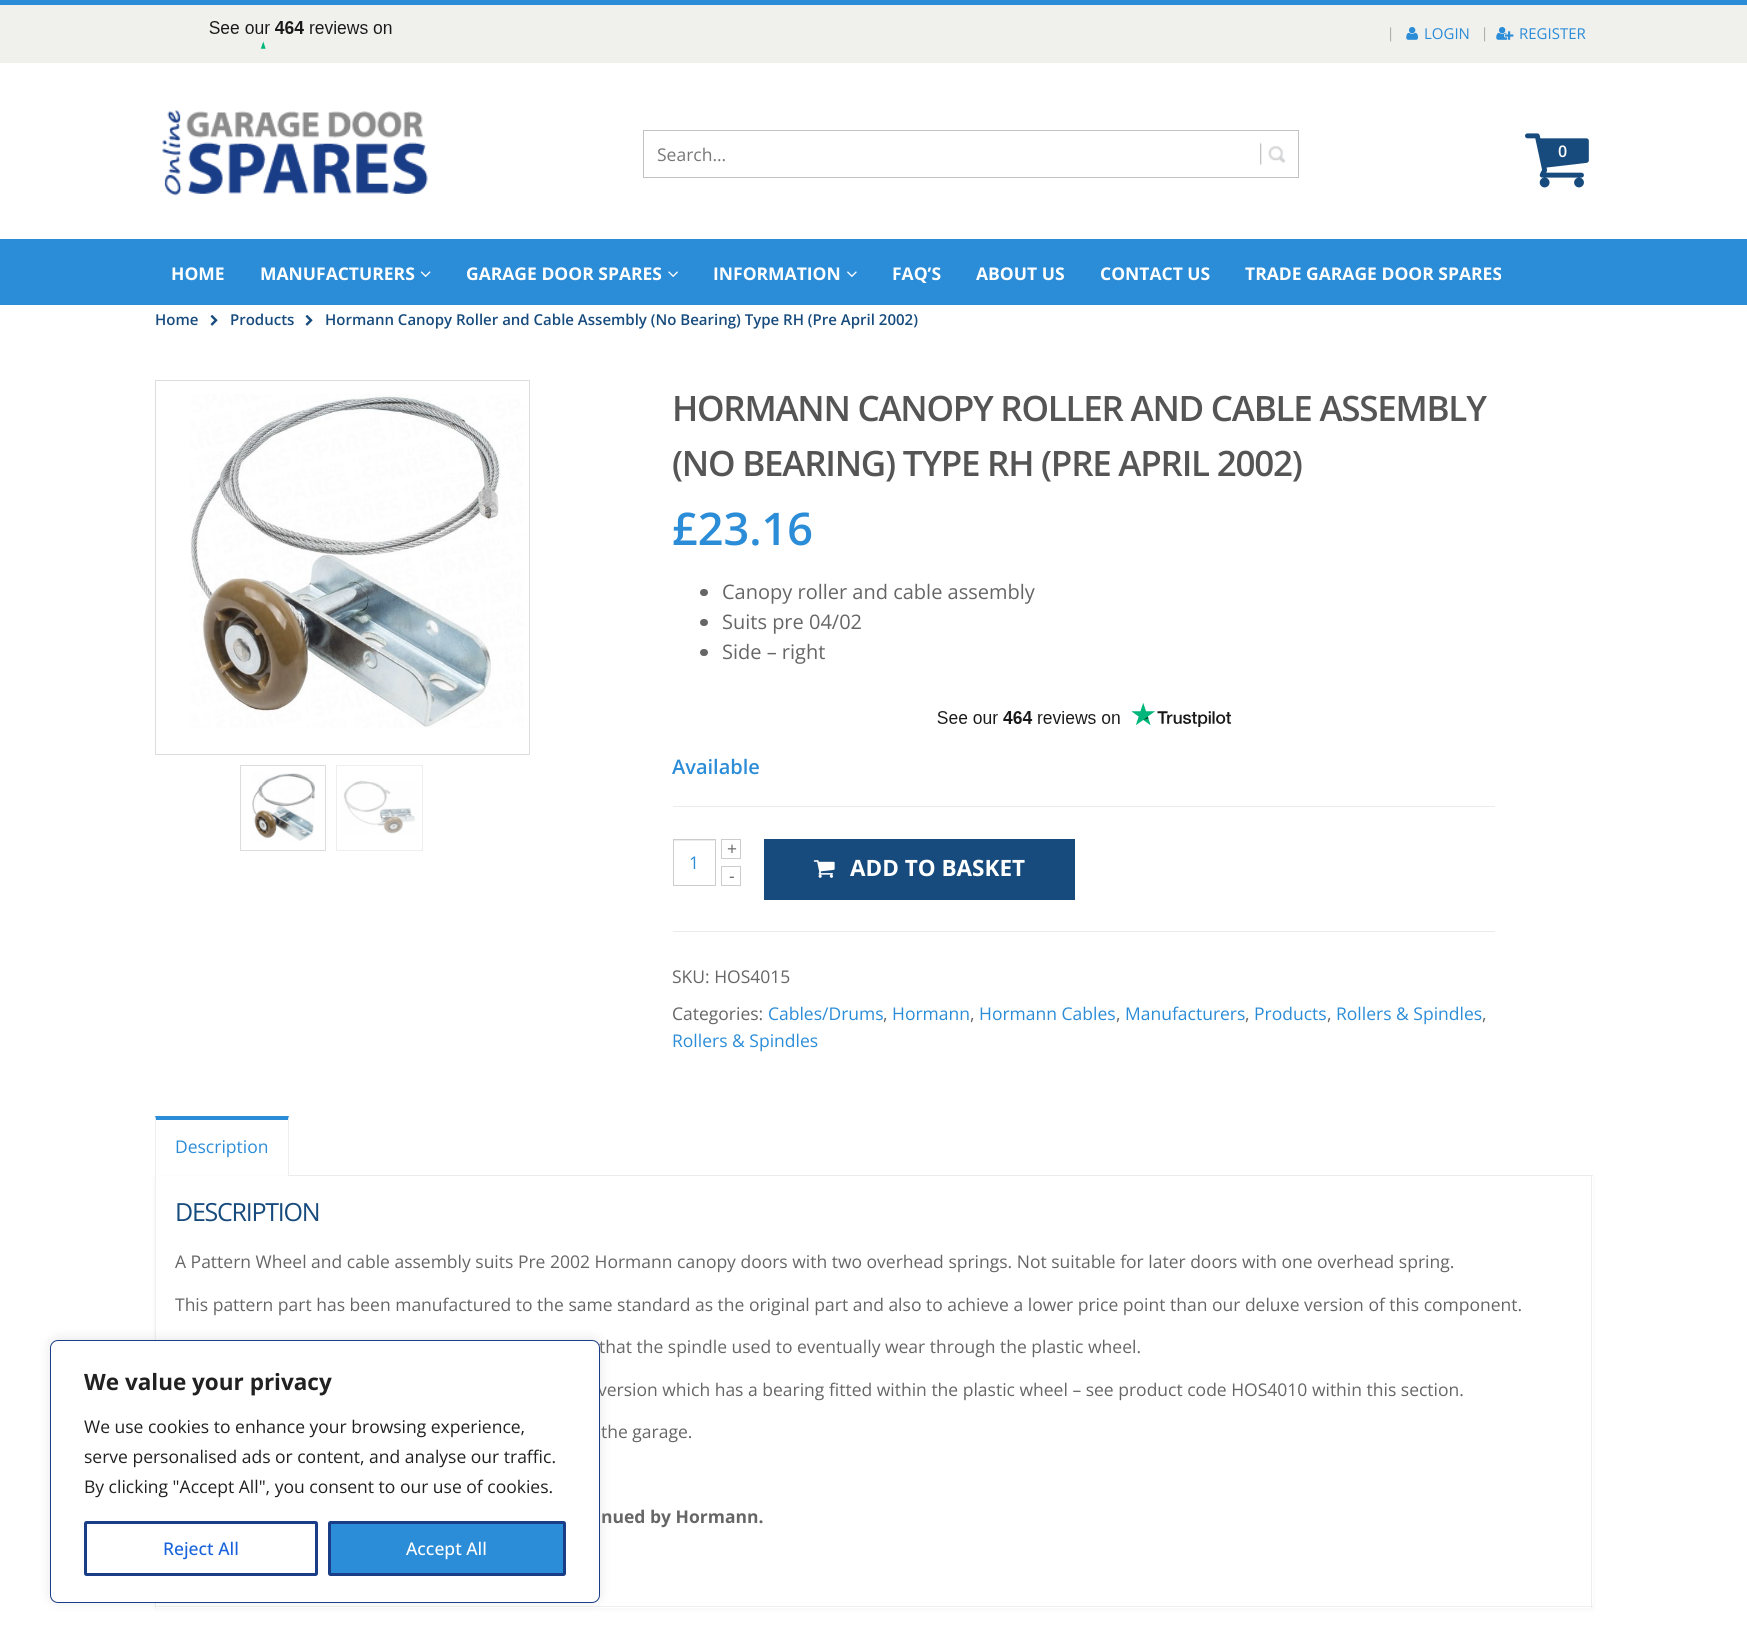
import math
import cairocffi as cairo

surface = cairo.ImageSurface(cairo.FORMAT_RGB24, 1747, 1652)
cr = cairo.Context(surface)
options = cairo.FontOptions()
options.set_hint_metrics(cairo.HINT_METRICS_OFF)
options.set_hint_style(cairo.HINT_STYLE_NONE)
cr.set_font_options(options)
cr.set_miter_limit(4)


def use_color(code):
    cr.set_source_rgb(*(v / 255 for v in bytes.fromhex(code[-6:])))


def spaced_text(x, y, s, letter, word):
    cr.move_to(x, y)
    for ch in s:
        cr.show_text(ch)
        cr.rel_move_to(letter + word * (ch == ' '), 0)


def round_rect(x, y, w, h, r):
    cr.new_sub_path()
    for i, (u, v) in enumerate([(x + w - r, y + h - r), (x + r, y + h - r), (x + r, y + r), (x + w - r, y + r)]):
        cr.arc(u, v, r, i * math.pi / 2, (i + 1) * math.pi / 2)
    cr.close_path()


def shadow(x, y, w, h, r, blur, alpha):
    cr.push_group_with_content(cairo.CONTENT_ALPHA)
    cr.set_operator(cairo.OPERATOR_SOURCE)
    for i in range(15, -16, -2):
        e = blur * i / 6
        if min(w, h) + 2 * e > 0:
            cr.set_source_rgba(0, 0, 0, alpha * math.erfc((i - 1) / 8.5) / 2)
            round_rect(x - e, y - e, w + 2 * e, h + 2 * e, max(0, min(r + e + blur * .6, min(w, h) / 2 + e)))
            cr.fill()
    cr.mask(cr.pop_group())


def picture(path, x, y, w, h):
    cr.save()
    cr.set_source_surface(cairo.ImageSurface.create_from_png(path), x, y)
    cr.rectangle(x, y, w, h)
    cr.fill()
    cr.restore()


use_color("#ffffff")
cr.paint()
use_color("#2b8cd7")
cr.rectangle(0, 0, 1747, 5)
cr.fill()
use_color("#f0f0ed")
cr.rectangle(0, 5, 1747, 58)
cr.fill()
picture("img1.png", 209, 21, 183, 28)
cr.select_font_face("Open Sans Light")
cr.set_font_size(14)
use_color("#777777")
cr.move_to(1387, 38)
cr.show_text("|")
picture("img2.png", 1406, 27, 12, 13)
cr.select_font_face("Open Sans")
cr.set_font_size(15)
use_color("#2b8cd7")
cr.move_to(1424, 39)
cr.show_text("LOGIN")
cr.select_font_face("Open Sans Light")
cr.set_font_size(14)
use_color("#777777")
cr.move_to(1481, 38)
cr.show_text("|")
picture("img3.png", 1496, 27, 18, 13)
cr.select_font_face("Open Sans")
cr.set_font_size(15)
use_color("#2b8cd7")
cr.move_to(1519, 39)
cr.show_text("REGISTER")
cr.rectangle(643.5, 130.5, 655, 47)
use_color("#c2c2c2")
cr.set_line_width(1)
cr.stroke()
cr.set_font_size(17.5)
use_color("#777777")
cr.move_to(657, 161)
cr.show_text("Search...")
picture("img4.png", 1260, 142, 25, 23)
picture("img5.png", 162, 110, 266, 86)
picture("img6.png", 1525, 133, 64, 55)
cr.select_font_face("Open Sans SemiBold")
cr.set_font_size(16)
use_color("#ffffff")
cr.move_to(1558, 157)
cr.show_text("0")
use_color("#2b8cd7")
cr.rectangle(0, 239, 1747, 66)
cr.fill()
cr.select_font_face("Open Sans", cairo.FONT_SLANT_NORMAL, cairo.FONT_WEIGHT_BOLD)
cr.set_font_size(17.5)
use_color("#ffffff")
cr.move_to(171, 280)
cr.show_text("HOME")
cr.move_to(260, 280)
cr.show_text("MANUFACTURERS")
picture("img7.png", 420, 271, 11, 6)
cr.move_to(466, 280)
cr.show_text("GARAGE DOOR SPARES")
picture("img8.png", 668, 271, 10, 6)
cr.move_to(713, 280)
cr.show_text("INFORMATION")
picture("img9.png", 847, 271, 10, 6)
cr.move_to(892, 280)
cr.show_text("FAQ’S")
cr.move_to(976, 280)
cr.show_text("ABOUT US")
cr.move_to(1100, 280)
cr.show_text("CONTACT US")
cr.move_to(1245, 280)
cr.show_text("TRADE GARAGE DOOR SPARES")
cr.select_font_face("Open Sans SemiBold")
cr.set_font_size(15)
use_color("#174b7d")
cr.move_to(155, 325)
cr.show_text("Home")
picture("img10.png", 210, 314, 8, 12)
cr.move_to(230, 325)
cr.show_text("Products")
picture("img10.png", 305, 314, 8, 12)
cr.move_to(325, 325)
cr.show_text("Hormann Canopy Roller and Cable Assembly (No Bearing) Type RH (Pre April 2002)")
cr.rectangle(155.5, 380.5, 374, 374)
use_color("#dddddd")
cr.stroke()
picture("img11.png", 190, 394, 334, 334)
cr.rectangle(240.5, 765.5, 85, 85)
cr.stroke()
picture("img12.png", 252, 773, 63, 68)
cr.rectangle(336.5, 765.5, 86, 85)
use_color("#eeeeee")
cr.stroke()
picture("img13.png", 343, 781, 73, 53)
cr.set_font_size(35)
use_color("#555555")
spaced_text(672, 421, "HORMANN CANOPY ROLLER AND CABLE ASSEMBLY", -1.25, 0)
spaced_text(672, 476, "(NO BEARING) TYPE RH (PRE APRIL 2002)", -1.25, 0)
cr.set_font_size(45)
use_color("#2b8cd7")
cr.move_to(672, 545)
cr.show_text("£23.16")
use_color("#666666")
round_rect(700, 589, 8, 7, 3.5)
cr.fill()
cr.select_font_face("Open Sans")
cr.set_font_size(20)
cr.move_to(722, 599)
cr.show_text("Canopy roller and cable assembly")
round_rect(700, 619, 8, 7, 3.5)
cr.fill()
cr.move_to(722, 629)
cr.show_text("Suits pre 04/02")
round_rect(700, 649, 8, 7, 3.5)
cr.fill()
cr.move_to(722, 659)
cr.show_text("Side – right")
picture("img14.png", 937, 703, 295, 24)
cr.select_font_face("Open Sans SemiBold")
use_color("#2b8cd7")
cr.move_to(672, 774)
cr.show_text("Available")
use_color("#ebebeb")
cr.rectangle(673, 806, 822, 1)
cr.fill()
cr.rectangle(673, 931, 822, 1)
cr.fill()
cr.rectangle(721.5, 839.5, 19, 19)
use_color("#cccccc")
cr.stroke()
cr.select_font_face("Open Sans")
cr.set_font_size(17.5)
use_color("#666666")
cr.move_to(727, 855)
cr.show_text("+")
use_color("#ececec")
cr.rectangle(674, 840, 41, 1)
cr.fill()
cr.rectangle(673.5, 839.5, 42, 46)
use_color("#cccccc")
cr.stroke()
use_color("#2b8cd7")
cr.move_to(689, 869)
cr.show_text("1")
cr.rectangle(721.5, 866.5, 19, 19)
use_color("#cccccc")
cr.stroke()
use_color("#666666")
cr.move_to(729, 882)
cr.show_text("-")
use_color("#174b7d")
cr.rectangle(764, 839, 311, 61)
cr.fill()
picture("img15.png", 813, 860, 22, 18)
cr.select_font_face("Open Sans", cairo.FONT_SLANT_NORMAL, cairo.FONT_WEIGHT_BOLD)
cr.set_font_size(22.5)
use_color("#ffffff")
cr.move_to(850, 876)
cr.show_text("ADD TO BASKET")
cr.select_font_face("Open Sans")
cr.set_font_size(17.5)
use_color("#666666")
cr.move_to(672, 983)
cr.show_text("SKU: HOS4015")
cr.move_to(672, 1020)
cr.show_text("Categories:")
use_color("#2b8cd7")
cr.move_to(768, 1020)
cr.show_text("Cables/Drums")
use_color("#666666")
cr.move_to(883, 1020)
cr.show_text(",")
use_color("#2b8cd7")
cr.move_to(892, 1020)
cr.show_text("Hormann")
use_color("#666666")
cr.move_to(970, 1020)
cr.show_text(",")
use_color("#2b8cd7")
cr.move_to(979, 1020)
cr.show_text("Hormann Cables")
use_color("#666666")
cr.move_to(1116, 1020)
cr.show_text(",")
use_color("#2b8cd7")
cr.move_to(1125, 1020)
cr.show_text("Manufacturers")
use_color("#666666")
cr.move_to(1245, 1020)
cr.show_text(",")
use_color("#2b8cd7")
cr.move_to(1254, 1020)
cr.show_text("Products")
use_color("#666666")
cr.move_to(1327, 1020)
cr.show_text(",")
use_color("#2b8cd7")
cr.move_to(1336, 1020)
cr.show_text("Rollers & Spindles")
use_color("#666666")
cr.move_to(1482, 1020)
cr.show_text(",")
use_color("#2b8cd7")
cr.move_to(672, 1047)
cr.show_text("Rollers & Spindles")
use_color("#eeeeee")
cr.rectangle(289, 1175, 1304, 1)
cr.fill()
use_color("#2b8cd7")
cr.new_path()
cr.move_to(155, 1116)
cr.line_to(289, 1116)
cr.line_to(288, 1120)
cr.line_to(156, 1120)
cr.close_path()
cr.fill()
use_color("#000000")
shadow(155, 1178, 1438, 431, 0, 3, 0.04)
use_color("#eeeeee")
cr.new_path()
cr.move_to(289, 1116)
cr.line_to(289, 1176)
cr.line_to(288, 1176)
cr.line_to(288, 1120)
cr.close_path()
cr.fill()
cr.new_path()
cr.move_to(155, 1176)
cr.line_to(155, 1116)
cr.line_to(156, 1120)
cr.line_to(156, 1176)
cr.close_path()
cr.fill()
use_color("#2b8cd7")
cr.move_to(175, 1153)
cr.show_text("Description")
use_color("#ffffff")
cr.rectangle(156, 1176, 1437, 432)
cr.fill()
use_color("#eeeeee")
cr.rectangle(1591, 1176, 1, 432)
cr.fill()
cr.rectangle(155, 1606, 1438, 1)
cr.fill()
cr.rectangle(155, 1176, 1, 432)
cr.fill()
cr.set_font_size(25)
use_color("#174b7d")
spaced_text(175, 1221, "DESCRIPTION", -1.25, 0)
cr.set_font_size(17.5)
use_color("#666666")
cr.move_to(175, 1268)
cr.show_text("A Pattern Wheel and cable assembly suits Pre 2002 Hormann canopy doors with two overhead springs. Not suitable for later doors with one overhead spring.")
cr.move_to(175, 1311)
cr.show_text("This pattern part has been manufactured to the same standard as the original part and also to achieve a lower price point than our deluxe version of this component.")
cr.move_to(599, 1353)
cr.show_text("that the spindle used to eventually wear through the plastic wheel.")
cr.move_to(598, 1396)
cr.show_text("version which has a bearing fitted within the plastic wheel – see product code HOS4010 within this section.")
cr.move_to(601, 1438)
cr.show_text("the garage.")
cr.select_font_face("Open Sans", cairo.FONT_SLANT_NORMAL, cairo.FONT_WEIGHT_BOLD)
cr.move_to(601, 1523)
cr.show_text("nued by Hormann.")
use_color("#acabab")
shadow(50, 1339, 550, 262, 8, 6, 0.3)
use_color("#ffffff")
round_rect(50.5, 1340.5, 549, 262, 7.5)
cr.fill_preserve()
use_color("#1a3d87")
cr.stroke()
cr.set_font_size(22.5)
use_color("#212121")
cr.move_to(84, 1390)
cr.show_text("We value your privacy")
cr.select_font_face("Open Sans")
cr.set_font_size(17.5)
cr.move_to(84, 1433)
cr.show_text("We use cookies to enhance your browsing experience,")
cr.move_to(84, 1463)
cr.show_text("serve personalised ads or content, and analyse our traffic.")
cr.move_to(84, 1493)
cr.show_text("By clicking \"Accept All\", you consent to our use of cookies.")
round_rect(85.5, 1522.5, 231, 52, 1)
use_color("#1a3d87")
cr.set_line_width(3)
cr.stroke()
cr.select_font_face("Open Sans Medium")
use_color("#1863dc")
cr.move_to(163, 1555)
cr.show_text("Reject All")
use_color("#2b8cd7")
round_rect(329.5, 1522.5, 235, 52, 1)
cr.fill_preserve()
use_color("#1a3d87")
cr.stroke()
use_color("#ffffff")
cr.move_to(406, 1555)
cr.show_text("Accept All")
surface.write_to_png("result.png")
